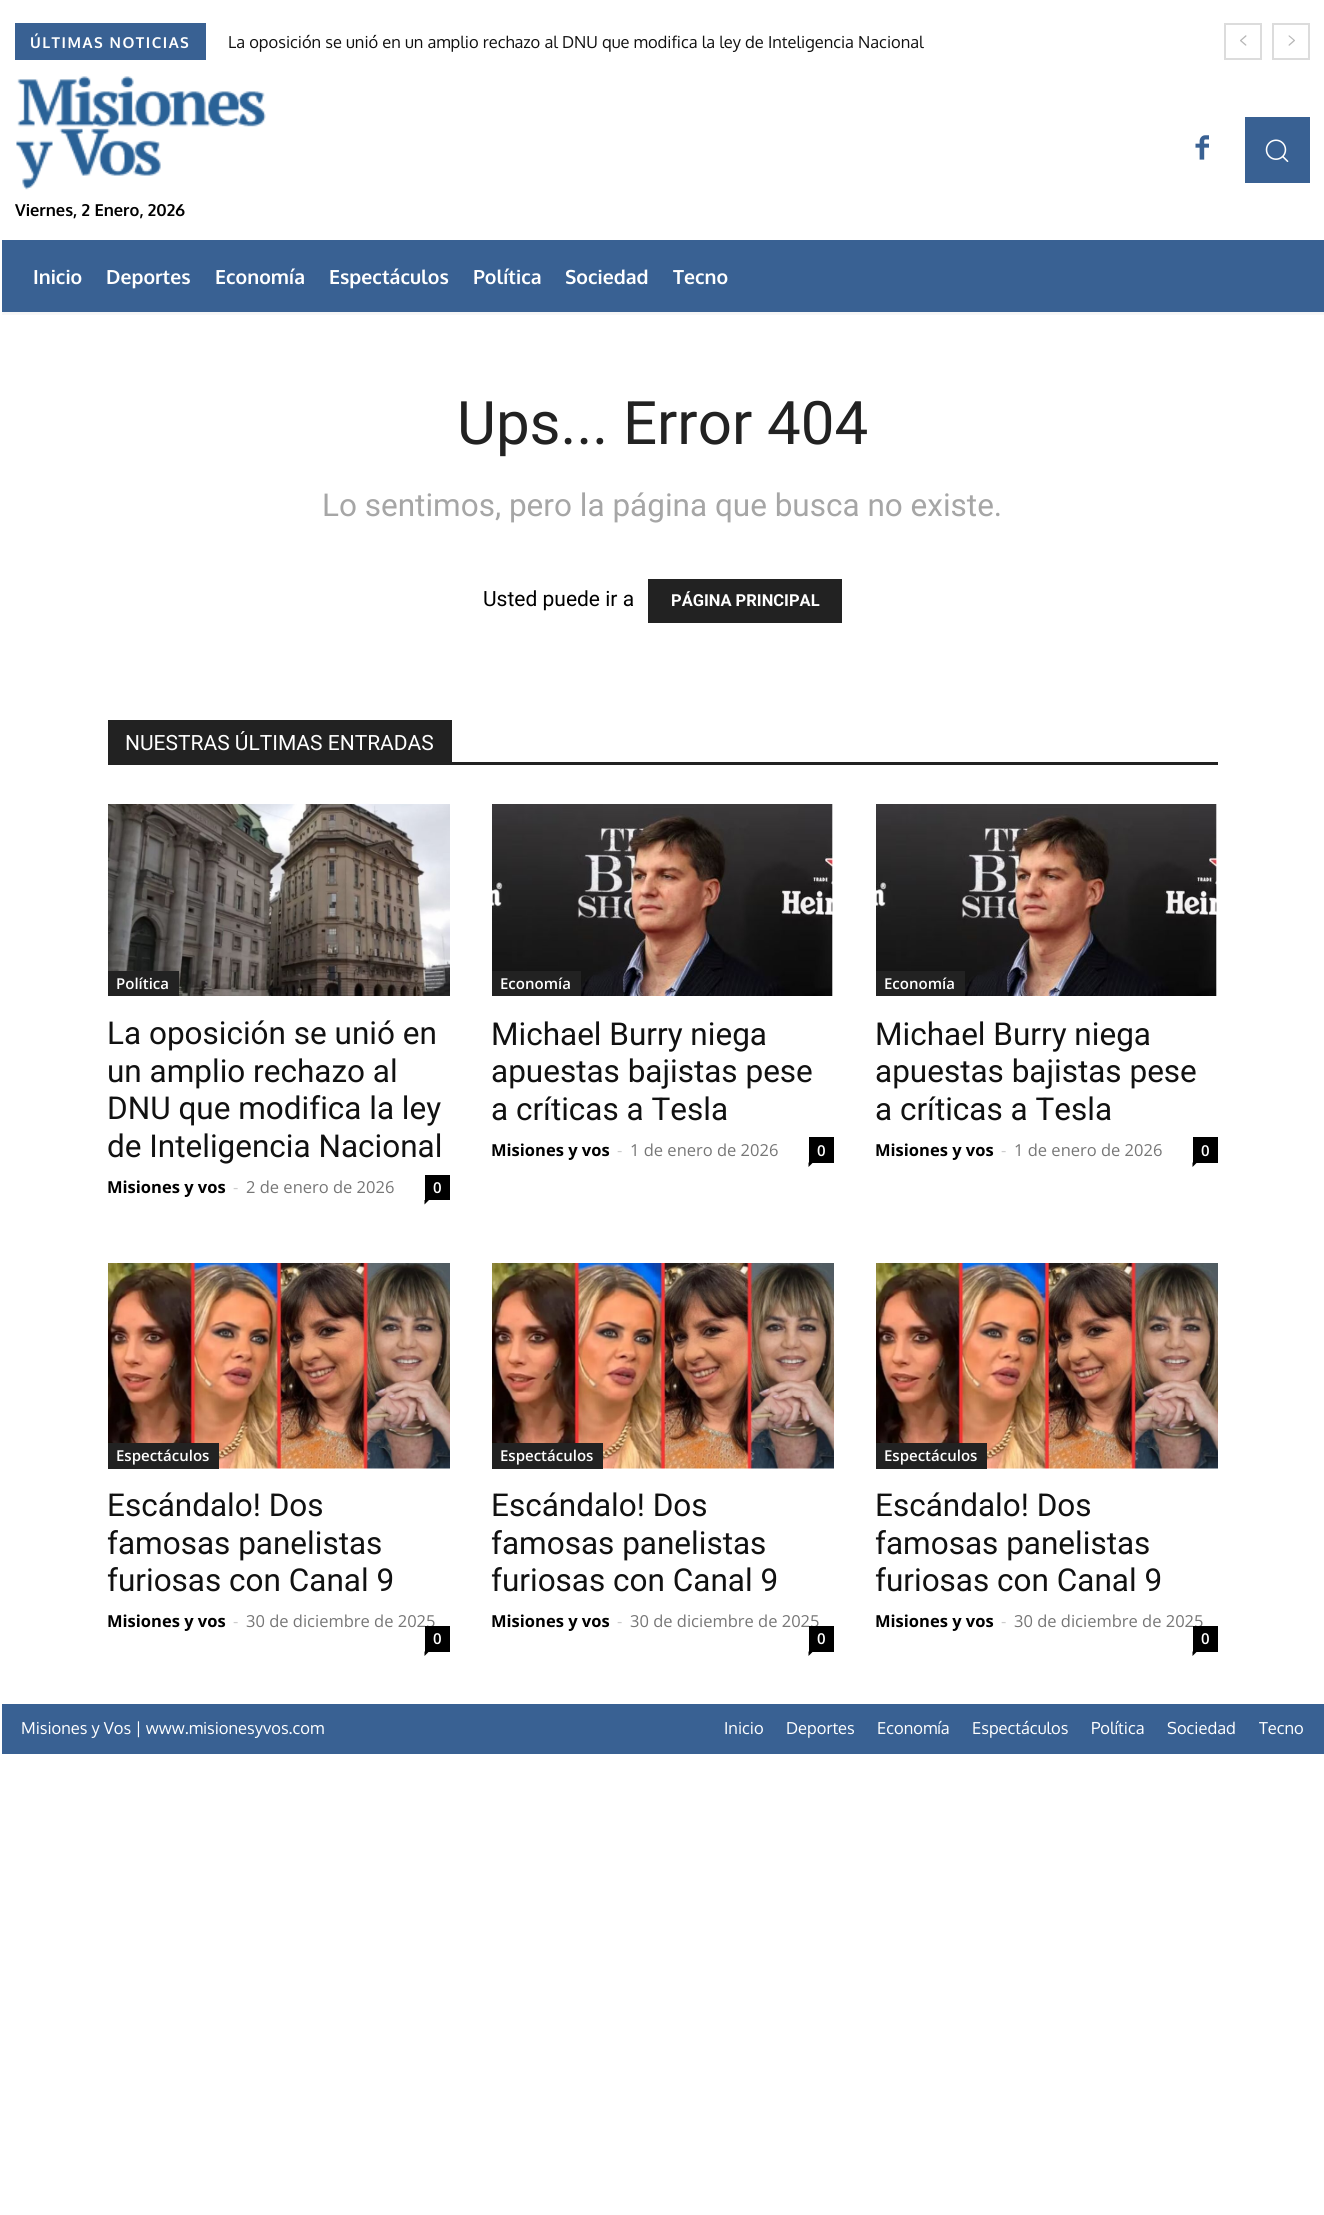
import math
import cairocffi as cairo

surface = cairo.ImageSurface(cairo.FORMAT_RGB24, 1324, 2215)
cr = cairo.Context(surface)
options = cairo.FontOptions()
options.set_hint_metrics(cairo.HINT_METRICS_OFF)
options.set_hint_style(cairo.HINT_STYLE_NONE)
cr.set_font_options(options)
cr.set_miter_limit(4)


def use_color(code):
    cr.set_source_rgb(*(v / 255 for v in bytes.fromhex(code[-6:])))


def spaced_text(x, y, s, letter, word):
    cr.move_to(x, y)
    for ch in s:
        cr.show_text(ch)
        cr.rel_move_to(letter + word * (ch == ' '), 0)


def round_rect(x, y, w, h, r):
    cr.new_sub_path()
    for i, (u, v) in enumerate([(x + w - r, y + h - r), (x + r, y + h - r), (x + r, y + r), (x + w - r, y + r)]):
        cr.arc(u, v, r, i * math.pi / 2, (i + 1) * math.pi / 2)
    cr.close_path()


def shadow(x, y, w, h, r, blur, alpha):
    cr.push_group_with_content(cairo.CONTENT_ALPHA)
    cr.set_operator(cairo.OPERATOR_SOURCE)
    for i in range(15, -16, -2):
        e = blur * i / 6
        if min(w, h) + 2 * e > 0:
            cr.set_source_rgba(0, 0, 0, alpha * math.erfc((i - 1) / 8.5) / 2)
            round_rect(x - e, y - e, w + 2 * e, h + 2 * e, max(0, min(r + e + blur * .6, min(w, h) / 2 + e)))
            cr.fill()
    cr.mask(cr.pop_group())


def picture(path, x, y, w, h):
    cr.save()
    cr.set_source_surface(cairo.ImageSurface.create_from_png(path), x, y)
    cr.rectangle(x, y, w, h)
    cr.fill()
    cr.restore()


use_color("#ffffff")
cr.paint()
use_color("#396193")
cr.rectangle(15, 23, 191, 37)
cr.fill()
cr.select_font_face("Oxygen", cairo.FONT_SLANT_NORMAL, cairo.FONT_WEIGHT_BOLD)
cr.set_font_size(15)
use_color("#ffffff")
spaced_text(30, 48, "ÚLTIMAS NOTICIAS", 1.5, 0)
cr.select_font_face("Oxygen")
cr.set_font_size(16.5)
use_color("#111111")
cr.move_to(228, 48)
cr.show_text("La oposición se unió en un amplio rechazo al DNU que modifica la ley de Inteligencia Nacional")
cr.rectangle(1225, 24, 36, 35)
use_color("#dcdcdc")
cr.stroke()
picture("img1.png", 1240, 35, 7, 11)
cr.rectangle(1273, 24, 36, 35)
cr.stroke()
picture("img2.png", 1288, 35, 7, 11)
picture("img3.png", 1195, 135, 14, 25)
use_color("#396193")
cr.rectangle(1245, 117, 65, 66)
cr.fill()
picture("img4.png", 1265, 139, 24, 23)
picture("img5.png", 16, 76, 250, 114)
cr.select_font_face("Oxygen", cairo.FONT_SLANT_NORMAL, cairo.FONT_WEIGHT_BOLD)
use_color("#000000")
cr.move_to(15, 216)
cr.show_text("Viernes, 2 Enero, 2026")
use_color("#396193")
cr.rectangle(2, 240, 1322, 72)
cr.fill()
cr.save()
cr.rectangle(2, 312, 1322, 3)
cr.clip()
use_color("#000000")
shadow(2, 243, 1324, 72, 0, 2, 0.05)
cr.restore()
cr.set_font_size(19.5)
use_color("#ffffff")
cr.move_to(33, 284)
cr.show_text("Inicio")
cr.move_to(106, 284)
cr.show_text("Deportes")
cr.move_to(215, 284)
cr.show_text("Economía")
cr.move_to(329, 284)
cr.show_text("Espectáculos")
cr.move_to(473, 284)
cr.show_text("Política")
cr.move_to(565, 284)
cr.show_text("Sociedad")
cr.move_to(673, 284)
cr.show_text("Tecno")
cr.select_font_face("Roboto")
cr.set_font_size(60)
use_color("#222222")
cr.move_to(457, 444)
cr.show_text("Ups... Error 404")
cr.set_font_size(31.5)
use_color("#a6a6a6")
cr.move_to(322, 516)
cr.show_text("Lo sentimos, pero la página que busca no existe.")
cr.set_font_size(21)
use_color("#000000")
cr.move_to(483, 606)
cr.show_text("Usted puede ir a")
use_color("#222222")
cr.rectangle(648, 579, 194, 44)
cr.fill()
cr.select_font_face("Roboto", cairo.FONT_SLANT_NORMAL, cairo.FONT_WEIGHT_BOLD)
cr.set_font_size(16.5)
use_color("#ffffff")
cr.move_to(671, 606)
cr.show_text("PÁGINA PRINCIPAL")
use_color("#222222")
cr.rectangle(108, 762, 1110, 3)
cr.fill()
cr.rectangle(108, 720, 344, 42)
cr.fill()
cr.select_font_face("Roboto")
cr.set_font_size(21)
use_color("#ffffff")
cr.move_to(125, 750)
cr.show_text("NUESTRAS ÚLTIMAS ENTRADAS")
picture("img6.png", 108, 804, 342, 192)
use_color("#222222")
cr.rectangle(108, 971, 71, 25)
cr.fill()
cr.select_font_face("Open Sans SemiBold")
cr.set_font_size(15)
use_color("#ffffff")
cr.move_to(116, 989)
cr.show_text("Política")
cr.select_font_face("Roboto")
cr.set_font_size(31.5)
use_color("#111111")
cr.move_to(107, 1044)
cr.show_text("La oposición se unió en")
cr.move_to(107, 1082)
cr.show_text("un amplio rechazo al")
cr.move_to(107, 1119)
cr.show_text("DNU que modifica la ley")
cr.move_to(107, 1157)
cr.show_text("de Inteligencia Nacional")
cr.select_font_face("Open Sans", cairo.FONT_SLANT_NORMAL, cairo.FONT_WEIGHT_BOLD)
cr.set_font_size(16.5)
use_color("#000000")
cr.move_to(107, 1193)
cr.show_text("Misiones y vos")
cr.select_font_face("Open Sans")
use_color("#cccccc")
cr.move_to(233, 1193)
cr.show_text("-")
use_color("#767676")
cr.move_to(246, 1193)
cr.show_text("2 de enero de 2026")
use_color("#000000")
cr.rectangle(425, 1175, 25, 25)
cr.fill()
cr.select_font_face("Open Sans SemiBold")
cr.set_font_size(15)
use_color("#ffffff")
cr.move_to(433, 1193)
cr.show_text("0")
use_color("#000000")
cr.new_path()
cr.move_to(424.5, 1200)
cr.line_to(429, 1200)
cr.line_to(424.5, 1204.5)
cr.close_path()
cr.fill()
picture("img7.png", 492, 804, 341, 192)
use_color("#222222")
cr.rectangle(492, 971, 89, 25)
cr.fill()
use_color("#ffffff")
cr.move_to(500, 989)
cr.show_text("Economía")
cr.select_font_face("Roboto")
cr.set_font_size(31.5)
use_color("#111111")
cr.move_to(491, 1045)
cr.show_text("Michael Burry niega")
cr.move_to(491, 1082)
cr.show_text("apuestas bajistas pese")
cr.move_to(491, 1120)
cr.show_text("a críticas a Tesla")
cr.select_font_face("Open Sans", cairo.FONT_SLANT_NORMAL, cairo.FONT_WEIGHT_BOLD)
cr.set_font_size(16.5)
use_color("#000000")
cr.move_to(491, 1156)
cr.show_text("Misiones y vos")
cr.select_font_face("Open Sans")
use_color("#cccccc")
cr.move_to(617, 1156)
cr.show_text("-")
use_color("#767676")
cr.move_to(630, 1156)
cr.show_text("1 de enero de 2026")
use_color("#000000")
cr.rectangle(809, 1137, 25, 26)
cr.fill()
cr.select_font_face("Open Sans SemiBold")
cr.set_font_size(15)
use_color("#ffffff")
cr.move_to(817, 1156)
cr.show_text("0")
use_color("#000000")
cr.new_path()
cr.move_to(808.5, 1162.5)
cr.line_to(813, 1162.5)
cr.line_to(808.5, 1167)
cr.close_path()
cr.fill()
picture("img7.png", 876, 804, 341, 192)
use_color("#222222")
cr.rectangle(876, 971, 89, 25)
cr.fill()
use_color("#ffffff")
cr.move_to(884, 989)
cr.show_text("Economía")
cr.select_font_face("Roboto")
cr.set_font_size(31.5)
use_color("#111111")
cr.move_to(875, 1045)
cr.show_text("Michael Burry niega")
cr.move_to(875, 1082)
cr.show_text("apuestas bajistas pese")
cr.move_to(875, 1120)
cr.show_text("a críticas a Tesla")
cr.select_font_face("Open Sans", cairo.FONT_SLANT_NORMAL, cairo.FONT_WEIGHT_BOLD)
cr.set_font_size(16.5)
use_color("#000000")
cr.move_to(875, 1156)
cr.show_text("Misiones y vos")
cr.select_font_face("Open Sans")
use_color("#cccccc")
cr.move_to(1001, 1156)
cr.show_text("-")
use_color("#767676")
cr.move_to(1014, 1156)
cr.show_text("1 de enero de 2026")
use_color("#000000")
cr.rectangle(1193, 1137, 25, 26)
cr.fill()
cr.select_font_face("Open Sans SemiBold")
cr.set_font_size(15)
use_color("#ffffff")
cr.move_to(1201, 1156)
cr.show_text("0")
use_color("#000000")
cr.new_path()
cr.move_to(1192.5, 1162.5)
cr.line_to(1197, 1162.5)
cr.line_to(1192.5, 1167)
cr.close_path()
cr.fill()
picture("img8.png", 108, 1263, 342, 206)
use_color("#222222")
cr.rectangle(108, 1443, 111, 26)
cr.fill()
use_color("#ffffff")
cr.move_to(116, 1461)
cr.show_text("Espectáculos")
cr.select_font_face("Roboto")
cr.set_font_size(31.5)
use_color("#111111")
cr.move_to(107, 1516)
cr.show_text("Escándalo! Dos")
cr.move_to(107, 1554)
cr.show_text("famosas panelistas")
cr.move_to(107, 1591)
cr.show_text("furiosas con Canal 9")
cr.select_font_face("Open Sans", cairo.FONT_SLANT_NORMAL, cairo.FONT_WEIGHT_BOLD)
cr.set_font_size(16.5)
use_color("#000000")
cr.move_to(107, 1627)
cr.show_text("Misiones y vos")
cr.select_font_face("Open Sans")
use_color("#cccccc")
cr.move_to(233, 1627)
cr.show_text("-")
use_color("#767676")
cr.move_to(246, 1627)
cr.show_text("30 de diciembre de 2025")
use_color("#000000")
cr.rectangle(425, 1626, 25, 26)
cr.fill()
cr.select_font_face("Open Sans SemiBold")
cr.set_font_size(15)
use_color("#ffffff")
cr.move_to(433, 1644)
cr.show_text("0")
use_color("#000000")
cr.new_path()
cr.move_to(424.5, 1651.5)
cr.line_to(429, 1651.5)
cr.line_to(424.5, 1656)
cr.close_path()
cr.fill()
picture("img9.png", 492, 1263, 342, 206)
use_color("#222222")
cr.rectangle(492, 1443, 111, 26)
cr.fill()
use_color("#ffffff")
cr.move_to(500, 1461)
cr.show_text("Espectáculos")
cr.select_font_face("Roboto")
cr.set_font_size(31.5)
use_color("#111111")
cr.move_to(491, 1516)
cr.show_text("Escándalo! Dos")
cr.move_to(491, 1554)
cr.show_text("famosas panelistas")
cr.move_to(491, 1591)
cr.show_text("furiosas con Canal 9")
cr.select_font_face("Open Sans", cairo.FONT_SLANT_NORMAL, cairo.FONT_WEIGHT_BOLD)
cr.set_font_size(16.5)
use_color("#000000")
cr.move_to(491, 1627)
cr.show_text("Misiones y vos")
cr.select_font_face("Open Sans")
use_color("#cccccc")
cr.move_to(617, 1627)
cr.show_text("-")
use_color("#767676")
cr.move_to(630, 1627)
cr.show_text("30 de diciembre de 2025")
use_color("#000000")
cr.rectangle(809, 1626, 25, 26)
cr.fill()
cr.select_font_face("Open Sans SemiBold")
cr.set_font_size(15)
use_color("#ffffff")
cr.move_to(817, 1644)
cr.show_text("0")
use_color("#000000")
cr.new_path()
cr.move_to(808.5, 1651.5)
cr.line_to(813, 1651.5)
cr.line_to(808.5, 1656)
cr.close_path()
cr.fill()
picture("img10.png", 876, 1263, 342, 206)
use_color("#222222")
cr.rectangle(876, 1443, 111, 26)
cr.fill()
use_color("#ffffff")
cr.move_to(884, 1461)
cr.show_text("Espectáculos")
cr.select_font_face("Roboto")
cr.set_font_size(31.5)
use_color("#111111")
cr.move_to(875, 1516)
cr.show_text("Escándalo! Dos")
cr.move_to(875, 1554)
cr.show_text("famosas panelistas")
cr.move_to(875, 1591)
cr.show_text("furiosas con Canal 9")
cr.select_font_face("Open Sans", cairo.FONT_SLANT_NORMAL, cairo.FONT_WEIGHT_BOLD)
cr.set_font_size(16.5)
use_color("#000000")
cr.move_to(875, 1627)
cr.show_text("Misiones y vos")
cr.select_font_face("Open Sans")
use_color("#cccccc")
cr.move_to(1001, 1627)
cr.show_text("-")
use_color("#767676")
cr.move_to(1014, 1627)
cr.show_text("30 de diciembre de 2025")
use_color("#000000")
cr.rectangle(1193, 1626, 25, 26)
cr.fill()
cr.select_font_face("Open Sans SemiBold")
cr.set_font_size(15)
use_color("#ffffff")
cr.move_to(1201, 1644)
cr.show_text("0")
use_color("#000000")
cr.new_path()
cr.move_to(1192.5, 1651.5)
cr.line_to(1197, 1651.5)
cr.line_to(1192.5, 1656)
cr.close_path()
cr.fill()
use_color("#396193")
cr.rectangle(2, 1704, 1322, 50)
cr.fill()
cr.select_font_face("Oxygen")
cr.set_font_size(16.5)
use_color("#ffffff")
cr.move_to(21, 1734)
cr.show_text("Misiones y Vos | www.misionesyvos.com")
cr.move_to(724, 1734)
cr.show_text("Inicio")
cr.move_to(786, 1734)
cr.show_text("Deportes")
cr.move_to(877, 1734)
cr.show_text("Economía")
cr.move_to(972, 1734)
cr.show_text("Espectáculos")
cr.move_to(1091, 1734)
cr.show_text("Política")
cr.move_to(1167, 1734)
cr.show_text("Sociedad")
cr.move_to(1259, 1734)
cr.show_text("Tecno")
surface.write_to_png("result.png")
